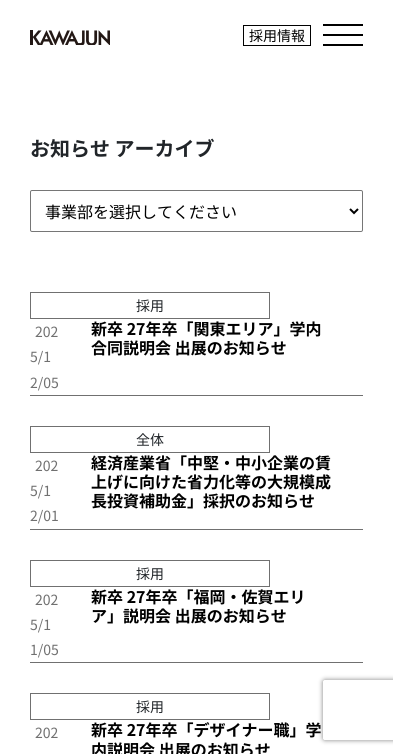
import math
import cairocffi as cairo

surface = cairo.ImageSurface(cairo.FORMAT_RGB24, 393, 754)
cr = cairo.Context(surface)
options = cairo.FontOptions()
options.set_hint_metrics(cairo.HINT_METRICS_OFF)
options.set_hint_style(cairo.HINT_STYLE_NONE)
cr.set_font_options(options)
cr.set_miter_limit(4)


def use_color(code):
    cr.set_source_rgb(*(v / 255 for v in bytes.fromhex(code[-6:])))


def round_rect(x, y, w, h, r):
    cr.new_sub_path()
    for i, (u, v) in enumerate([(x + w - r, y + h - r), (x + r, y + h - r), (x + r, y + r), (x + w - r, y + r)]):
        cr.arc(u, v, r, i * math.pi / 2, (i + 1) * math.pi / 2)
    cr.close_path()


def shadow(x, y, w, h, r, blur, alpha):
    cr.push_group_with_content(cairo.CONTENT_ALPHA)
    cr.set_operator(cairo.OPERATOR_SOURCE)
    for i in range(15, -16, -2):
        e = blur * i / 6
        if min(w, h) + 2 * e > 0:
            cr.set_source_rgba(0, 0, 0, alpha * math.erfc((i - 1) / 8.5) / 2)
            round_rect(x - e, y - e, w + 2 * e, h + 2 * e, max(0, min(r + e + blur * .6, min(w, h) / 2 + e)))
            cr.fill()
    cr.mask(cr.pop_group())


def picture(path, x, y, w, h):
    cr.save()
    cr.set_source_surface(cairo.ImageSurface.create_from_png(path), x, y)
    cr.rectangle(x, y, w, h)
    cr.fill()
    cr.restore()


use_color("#ffffff")
cr.paint()
picture("img1.png", 30, 30, 80, 15)
cr.rectangle(243.5, 25.5, 67, 20)
use_color("#000000")
cr.set_line_width(1)
cr.stroke()
cr.select_font_face("Noto Sans JP")
cr.set_font_size(14)
cr.move_to(249, 41)
cr.show_text("採用情報")
cr.rectangle(323, 34, 40, 2)
cr.fill()
cr.rectangle(323, 24, 40, 2)
cr.fill()
cr.rectangle(323, 44, 40, 2)
cr.fill()
cr.select_font_face("Noto Sans JP", cairo.FONT_SLANT_NORMAL, cairo.FONT_WEIGHT_BOLD)
cr.set_font_size(20)
use_color("#212529")
cr.move_to(30, 156)
cr.show_text("お知らせ アーカイブ")
round_rect(30.5, 190.5, 332, 41, 1.5)
use_color("#767676")
cr.stroke()
cr.new_path()
cr.move_to(350, 209)
cr.line_to(354, 213)
cr.line_to(358, 209)
use_color("#000000")
cr.set_line_width(2)
cr.stroke()
cr.select_font_face("Noto Sans JP")
cr.set_font_size(16)
cr.move_to(45, 218)
cr.show_text("事業部を選択してください")
cr.rectangle(30.5, 292.5, 239, 26)
use_color("#707070")
cr.set_line_width(1)
cr.stroke()
cr.set_font_size(14)
use_color("#212529")
cr.move_to(136, 311)
cr.show_text("採用")
use_color("#707070")
cr.rectangle(30, 395, 333, 1)
cr.fill()
cr.move_to(35, 337)
cr.show_text("202")
cr.move_to(30, 362)
cr.show_text("5/1")
cr.move_to(30, 388)
cr.show_text("2/05")
cr.select_font_face("Noto Sans JP", cairo.FONT_SLANT_NORMAL, cairo.FONT_WEIGHT_BOLD)
cr.set_font_size(16)
use_color("#000000")
cr.move_to(91, 335)
cr.show_text("新卒 27年卒「関東エリア」学内")
cr.move_to(91, 354)
cr.show_text("合同説明会 出展のお知らせ")
cr.rectangle(30.5, 426.5, 239, 26)
use_color("#707070")
cr.stroke()
cr.select_font_face("Noto Sans JP")
cr.set_font_size(14)
use_color("#212529")
cr.move_to(136, 445)
cr.show_text("全体")
use_color("#707070")
cr.rectangle(30, 529, 333, 1)
cr.fill()
cr.move_to(35, 471)
cr.show_text("202")
cr.move_to(30, 496)
cr.show_text("5/1")
cr.move_to(30, 521)
cr.show_text("2/01")
cr.select_font_face("Noto Sans JP", cairo.FONT_SLANT_NORMAL, cairo.FONT_WEIGHT_BOLD)
cr.set_font_size(16)
use_color("#000000")
cr.move_to(91, 469)
cr.show_text("経済産業省「中堅・中小企業の賃")
cr.move_to(91, 488)
cr.show_text("上げに向けた省力化等の大規模成")
cr.move_to(91, 507)
cr.show_text("長投資補助金」採択のお知らせ")
cr.rectangle(30.5, 560.5, 239, 26)
use_color("#707070")
cr.stroke()
cr.select_font_face("Noto Sans JP")
cr.set_font_size(14)
use_color("#212529")
cr.move_to(136, 579)
cr.show_text("採用")
use_color("#707070")
cr.rectangle(30, 662, 333, 1)
cr.fill()
cr.move_to(35, 605)
cr.show_text("202")
cr.move_to(30, 630)
cr.show_text("5/1")
cr.move_to(30, 655)
cr.show_text("1/05")
cr.select_font_face("Noto Sans JP", cairo.FONT_SLANT_NORMAL, cairo.FONT_WEIGHT_BOLD)
cr.set_font_size(16)
use_color("#000000")
cr.move_to(91, 603)
cr.show_text("新卒 27年卒「福岡・佐賀エリ")
cr.move_to(91, 622)
cr.show_text("ア」説明会 出展のお知らせ")
cr.rectangle(30.5, 693.5, 239, 26)
use_color("#707070")
cr.stroke()
cr.select_font_face("Noto Sans JP")
cr.set_font_size(14)
use_color("#212529")
cr.move_to(136, 712)
cr.show_text("採用")
use_color("#707070")
cr.move_to(35, 738)
cr.show_text("202")
cr.select_font_face("Noto Sans JP", cairo.FONT_SLANT_NORMAL, cairo.FONT_WEIGHT_BOLD)
cr.set_font_size(16)
use_color("#000000")
cr.move_to(91, 736)
cr.show_text("新卒 27年卒「デザイナー職」学")
cr.move_to(91, 756)
cr.show_text("内説明会 出展のお知らせ")
cr.save()
cr.set_fill_rule(cairo.FILL_RULE_EVEN_ODD)
cr.new_path()
cr.move_to(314, 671)
cr.line_to(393, 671)
cr.line_to(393, 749)
cr.line_to(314, 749)
cr.close_path()
cr.move_to(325, 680)
cr.line_to(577, 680)
cr.curve_to(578, 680, 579, 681, 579, 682)
cr.line_to(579, 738)
cr.curve_to(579, 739, 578, 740, 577, 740)
cr.line_to(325, 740)
cr.curve_to(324, 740, 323, 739, 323, 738)
cr.line_to(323, 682)
cr.curve_to(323, 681, 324, 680, 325, 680)
cr.close_path()
cr.clip()
use_color("#808080")
shadow(323, 680, 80, 60, 2, 2.5, 1)
cr.restore()
surface.write_to_png("result.png")
